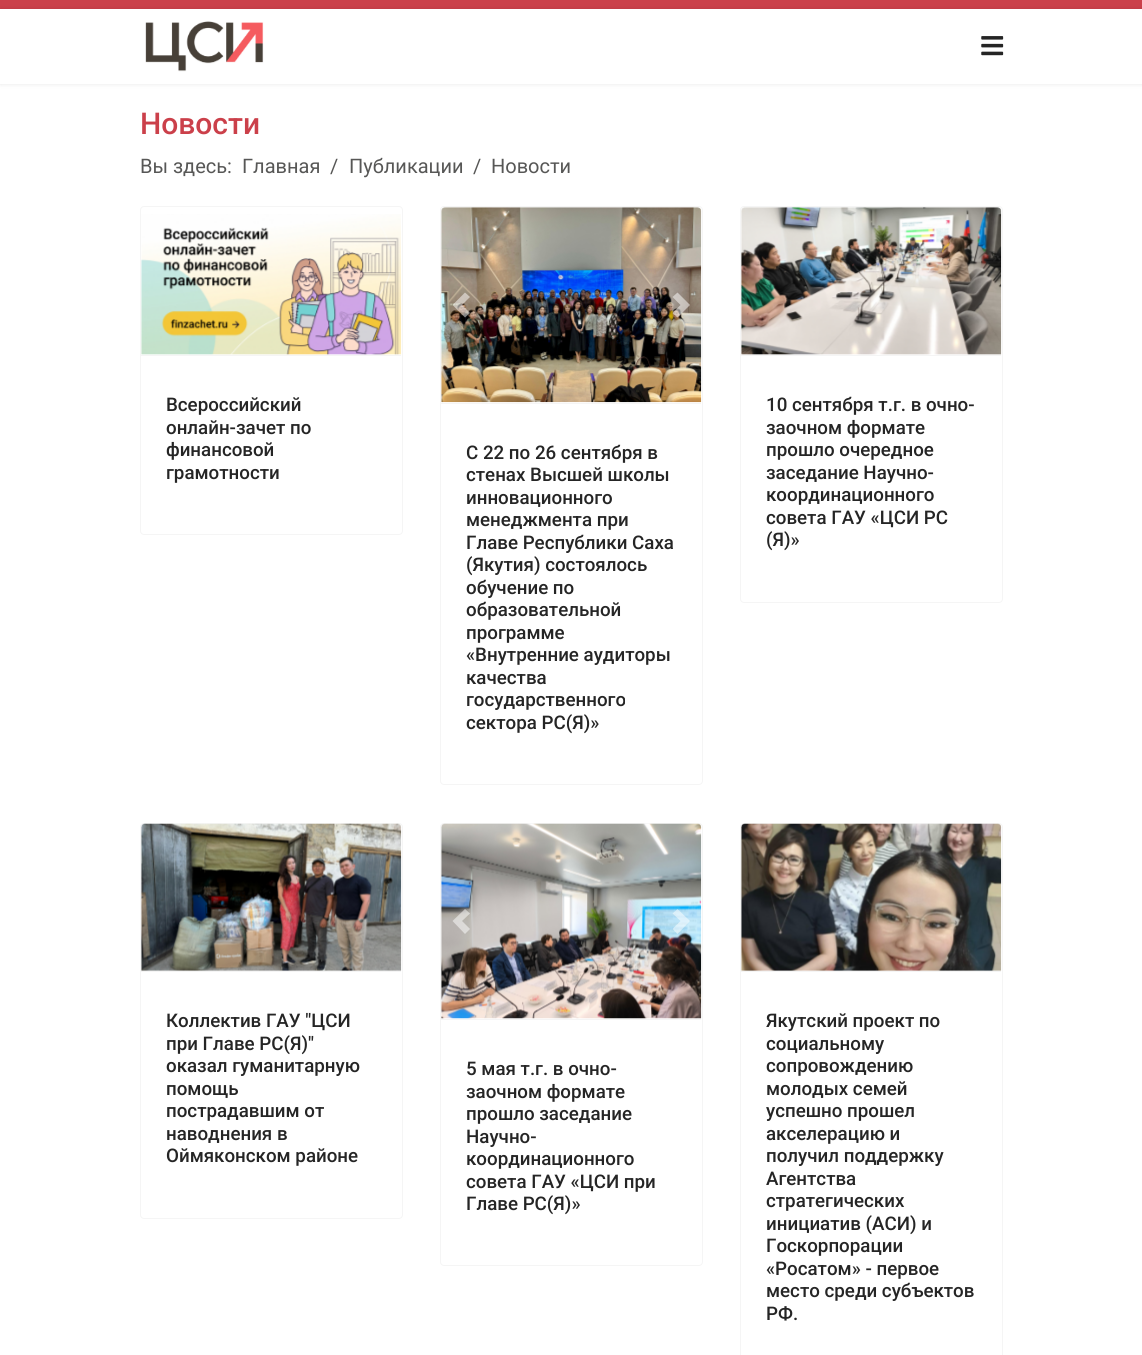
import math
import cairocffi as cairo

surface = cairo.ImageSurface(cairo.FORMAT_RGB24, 1142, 1355)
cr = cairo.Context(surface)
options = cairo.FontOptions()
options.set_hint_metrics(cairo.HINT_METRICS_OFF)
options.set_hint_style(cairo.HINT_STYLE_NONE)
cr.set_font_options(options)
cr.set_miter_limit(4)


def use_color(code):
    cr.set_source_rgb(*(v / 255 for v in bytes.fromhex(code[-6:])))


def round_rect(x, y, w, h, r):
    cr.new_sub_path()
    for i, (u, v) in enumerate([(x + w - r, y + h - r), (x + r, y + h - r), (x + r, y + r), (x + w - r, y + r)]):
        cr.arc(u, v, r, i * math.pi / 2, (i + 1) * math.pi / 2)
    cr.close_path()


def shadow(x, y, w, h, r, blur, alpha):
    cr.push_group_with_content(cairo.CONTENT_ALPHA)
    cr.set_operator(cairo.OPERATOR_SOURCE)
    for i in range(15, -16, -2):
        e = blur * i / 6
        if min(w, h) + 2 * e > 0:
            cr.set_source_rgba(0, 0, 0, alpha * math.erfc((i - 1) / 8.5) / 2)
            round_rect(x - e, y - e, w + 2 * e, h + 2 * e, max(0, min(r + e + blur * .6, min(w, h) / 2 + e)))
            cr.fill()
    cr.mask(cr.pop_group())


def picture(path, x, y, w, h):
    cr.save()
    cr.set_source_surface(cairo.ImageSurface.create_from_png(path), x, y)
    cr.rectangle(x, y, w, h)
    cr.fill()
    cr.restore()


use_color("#ffffff")
cr.paint()
use_color("#cb404a")
cr.rectangle(0, 0, 1142, 9)
cr.fill()
use_color("#000000")
shadow(0, 9, 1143, 75, 0, 2.5, 0.1)
use_color("#ffffff")
cr.rectangle(0, 9, 1142, 75)
cr.fill()
picture("img1.png", 145, 21, 119, 51)
picture("img2.png", 981, 36, 23, 20)
cr.select_font_face("Roboto Medium")
cr.set_font_size(30)
use_color("#cb404a")
cr.move_to(140, 134)
cr.show_text("Новости")
cr.select_font_face("Roboto")
cr.set_font_size(20)
use_color("#575756")
cr.move_to(140, 173)
cr.show_text("Вы здесь:")
cr.move_to(242, 173)
cr.show_text("Главная")
cr.move_to(330, 173)
cr.show_text("/")
cr.move_to(349, 173)
cr.show_text("Публикации")
cr.move_to(473, 173)
cr.show_text("/")
cr.move_to(491, 173)
cr.show_text("Новости")
round_rect(140.5, 206.5, 262, 328, 3.5)
use_color("#f5f5f5")
cr.set_line_width(1)
cr.stroke()
cr.rectangle(141, 355, 260, 1)
cr.fill()
picture("img3.png", 141, 214, 261, 141)
cr.select_font_face("Roboto Medium")
cr.set_font_size(18.75)
use_color("#252525")
cr.move_to(166, 411)
cr.show_text("Всероссийский")
cr.move_to(166, 434)
cr.show_text("онлайн-зачет по")
cr.move_to(166, 456)
cr.show_text("финансовой")
cr.move_to(166, 479)
cr.show_text("грамотности")
round_rect(440.5, 206.5, 262, 578, 3.5)
use_color("#f5f5f5")
cr.stroke()
cr.rectangle(441, 403, 260, 1)
cr.fill()
picture("img4.png", 441, 207, 261, 196)
cr.set_source_rgba(1, 1, 1, 0.5)
cr.new_path()
cr.move_to(465, 292.5)
cr.line_to(452.5, 305)
cr.line_to(465, 317.5)
cr.line_to(470, 313)
cr.line_to(462, 305)
cr.line_to(470, 297)
cr.close_path()
cr.fill()
cr.new_path()
cr.move_to(677.5, 292.5)
cr.line_to(672.5, 297)
cr.line_to(680.5, 305)
cr.line_to(672.5, 313)
cr.line_to(677.5, 317.5)
cr.line_to(690, 305)
cr.close_path()
cr.fill()
use_color("#252525")
cr.move_to(466, 459)
cr.show_text("С 22 по 26 сентября в")
cr.move_to(466, 481)
cr.show_text("стенах Высшей школы")
cr.move_to(466, 504)
cr.show_text("инновационного")
cr.move_to(466, 526)
cr.show_text("менеджмента при")
cr.move_to(466, 549)
cr.show_text("Главе Республики Саха")
cr.move_to(466, 571)
cr.show_text("(Якутия) состоялось")
cr.move_to(466, 594)
cr.show_text("обучение по")
cr.move_to(466, 616)
cr.show_text("образовательной")
cr.move_to(466, 639)
cr.show_text("программе")
cr.move_to(466, 661)
cr.show_text("«Внутренние аудиторы")
cr.move_to(466, 684)
cr.show_text("качества")
cr.move_to(466, 706)
cr.show_text("государственного")
cr.move_to(466, 729)
cr.show_text("сектора РС(Я)»")
round_rect(740.5, 206.5, 262, 396, 3.5)
use_color("#f5f5f5")
cr.stroke()
cr.rectangle(741, 355, 260, 1)
cr.fill()
picture("img5.png", 741, 207, 261, 148)
use_color("#252525")
cr.move_to(766, 411)
cr.show_text("10 сентября т.г. в очно-")
cr.move_to(766, 434)
cr.show_text("заочном формате")
cr.move_to(766, 456)
cr.show_text("прошло очередное")
cr.move_to(766, 479)
cr.show_text("заседание Научно-")
cr.move_to(766, 501)
cr.show_text("координационного")
cr.move_to(766, 524)
cr.show_text("совета ГАУ «ЦСИ РС")
cr.move_to(766, 546)
cr.show_text("(Я)»")
round_rect(140.5, 823.5, 262, 395, 3.5)
use_color("#f5f5f5")
cr.stroke()
cr.rectangle(141, 971, 260, 1)
cr.fill()
picture("img6.png", 141, 823, 261, 148)
use_color("#252525")
cr.move_to(166, 1027)
cr.show_text("Коллектив ГАУ \"ЦСИ")
cr.move_to(166, 1050)
cr.show_text("при Главе РС(Я)\"")
cr.move_to(166, 1072)
cr.show_text("оказал гуманитарную")
cr.move_to(166, 1095)
cr.show_text("помощь")
cr.move_to(166, 1117)
cr.show_text("пострадавшим от")
cr.move_to(166, 1140)
cr.show_text("наводнения в")
cr.move_to(166, 1162)
cr.show_text("Оймяконском районе")
round_rect(440.5, 823.5, 262, 442, 3.5)
use_color("#f5f5f5")
cr.stroke()
cr.rectangle(441, 1019, 260, 1)
cr.fill()
picture("img7.png", 441, 823, 261, 196)
cr.set_source_rgba(1, 1, 1, 0.5)
cr.new_path()
cr.move_to(465, 909)
cr.line_to(452.5, 921)
cr.line_to(465, 934)
cr.line_to(470, 929)
cr.line_to(462, 921)
cr.line_to(470, 913.5)
cr.close_path()
cr.fill()
cr.new_path()
cr.move_to(677.5, 909)
cr.line_to(672.5, 913.5)
cr.line_to(680.5, 921)
cr.line_to(672.5, 929)
cr.line_to(677.5, 934)
cr.line_to(690, 921)
cr.close_path()
cr.fill()
use_color("#252525")
cr.move_to(466, 1075)
cr.show_text("5 мая т.г. в очно-")
cr.move_to(466, 1098)
cr.show_text("заочном формате")
cr.move_to(466, 1120)
cr.show_text("прошло заседание")
cr.move_to(466, 1143)
cr.show_text("Научно-")
cr.move_to(466, 1165)
cr.show_text("координационного")
cr.move_to(466, 1188)
cr.show_text("совета ГАУ «ЦСИ при")
cr.move_to(466, 1210)
cr.show_text("Главе РС(Я)»")
round_rect(740.5, 823.5, 262, 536, 3.5)
use_color("#f5f5f5")
cr.stroke()
cr.rectangle(741, 971, 260, 1)
cr.fill()
picture("img8.png", 741, 823, 261, 148)
use_color("#252525")
cr.move_to(766, 1027)
cr.show_text("Якутский проект по")
cr.move_to(766, 1050)
cr.show_text("социальному")
cr.move_to(766, 1072)
cr.show_text("сопровождению")
cr.move_to(766, 1095)
cr.show_text("молодых семей")
cr.move_to(766, 1117)
cr.show_text("успешно прошел")
cr.move_to(766, 1140)
cr.show_text("акселерацию и")
cr.move_to(766, 1162)
cr.show_text("получил поддержку")
cr.move_to(766, 1185)
cr.show_text("Агентства")
cr.move_to(766, 1207)
cr.show_text("стратегических")
cr.move_to(766, 1230)
cr.show_text("инициатив (АСИ) и")
cr.move_to(766, 1252)
cr.show_text("Госкорпорации")
cr.move_to(766, 1275)
cr.show_text("«Росатом» - первое")
cr.move_to(766, 1297)
cr.show_text("место среди субъектов")
cr.move_to(766, 1320)
cr.show_text("РФ.")
surface.write_to_png("result.png")
